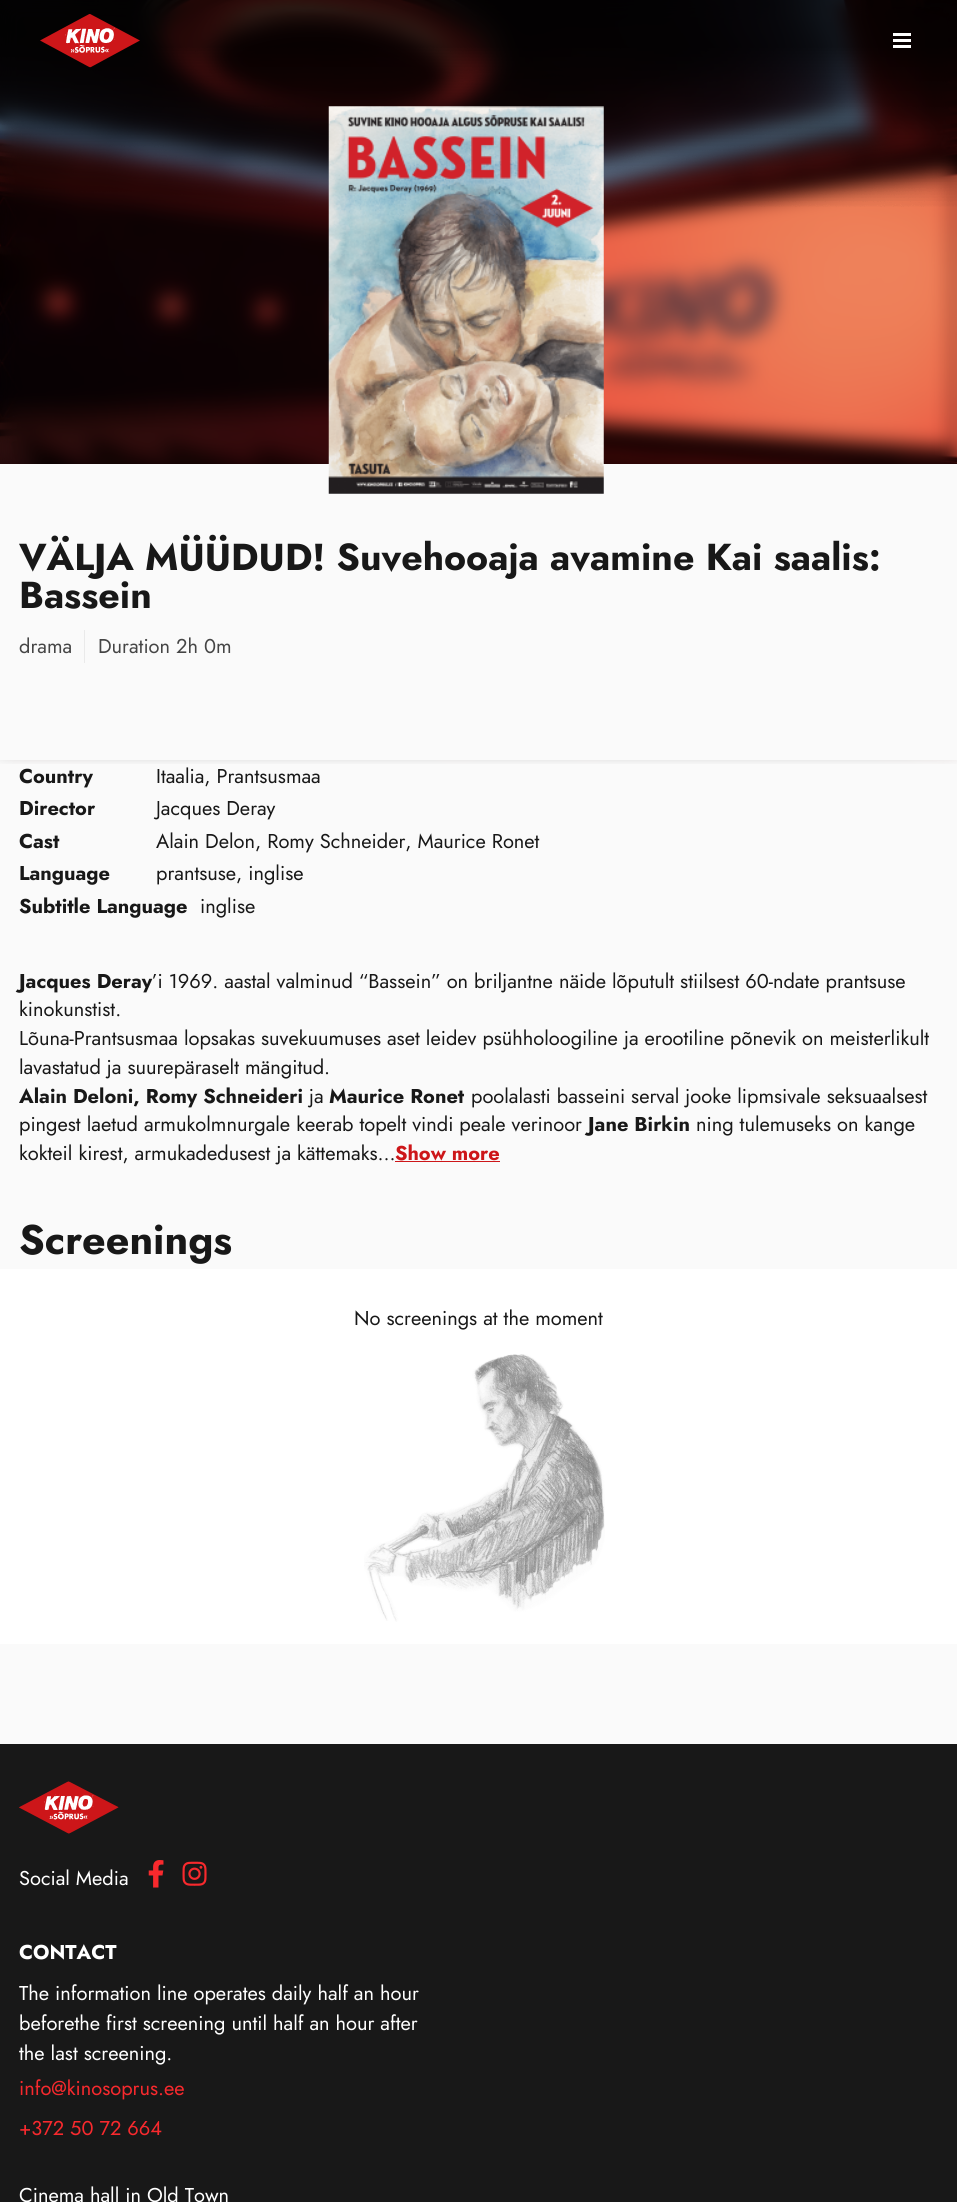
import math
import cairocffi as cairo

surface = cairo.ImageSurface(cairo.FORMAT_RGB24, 957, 2202)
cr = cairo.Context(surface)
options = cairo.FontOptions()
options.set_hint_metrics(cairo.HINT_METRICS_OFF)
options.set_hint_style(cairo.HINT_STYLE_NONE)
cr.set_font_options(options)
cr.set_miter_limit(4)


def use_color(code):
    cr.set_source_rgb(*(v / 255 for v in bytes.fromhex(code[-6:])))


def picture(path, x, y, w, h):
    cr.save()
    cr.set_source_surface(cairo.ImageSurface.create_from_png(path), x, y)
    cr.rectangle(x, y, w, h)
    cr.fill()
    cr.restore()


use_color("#181818")
cr.paint()
picture("img2.png", 0, 0, 957, 464)
use_color("#fafafa")
cr.rectangle(0, 760, 957, 984)
cr.fill()
picture("img3.png", 0, 0, 957, 764)
picture("img4.png", 0, 0, 957, 207)
picture("img1.png", 40, 14, 100, 54)
use_color("#ffffff")
cr.rectangle(893, 33, 18, 3)
cr.fill()
cr.rectangle(893, 39, 18, 3)
cr.fill()
cr.rectangle(893, 45, 18, 3)
cr.fill()
use_color("#fafafa")
cr.rectangle(0, 464, 957, 296)
cr.fill()
picture("img5.png", 328, 106, 276, 388)
cr.select_font_face("Jost", cairo.FONT_SLANT_NORMAL, cairo.FONT_WEIGHT_BOLD)
cr.set_font_size(37.5)
use_color("#181818")
cr.move_to(19, 570)
cr.show_text("VÄLJA MÜÜDUD! Suvehooaja avamine Kai saalis:")
cr.move_to(19, 608)
cr.show_text("Bassein")
cr.select_font_face("Jost")
cr.set_font_size(20)
use_color("#454545")
cr.move_to(19, 653)
cr.show_text("drama")
use_color("#eaeaea")
cr.rectangle(84, 630, 1, 33)
cr.fill()
use_color("#454545")
cr.move_to(98, 653)
cr.show_text("Duration 2h 0m")
cr.select_font_face("Jost", cairo.FONT_SLANT_NORMAL, cairo.FONT_WEIGHT_BOLD)
use_color("#181818")
cr.move_to(19, 783)
cr.show_text("Country")
cr.select_font_face("Jost")
cr.move_to(156, 783)
cr.show_text("Itaalia, Prantsusmaa")
cr.select_font_face("Jost", cairo.FONT_SLANT_NORMAL, cairo.FONT_WEIGHT_BOLD)
cr.move_to(19, 815)
cr.show_text("Director")
cr.select_font_face("Jost")
cr.move_to(156, 815)
cr.show_text("Jacques Deray")
cr.select_font_face("Jost", cairo.FONT_SLANT_NORMAL, cairo.FONT_WEIGHT_BOLD)
cr.move_to(19, 848)
cr.show_text("Cast")
cr.select_font_face("Jost")
cr.move_to(156, 848)
cr.show_text("Alain Delon, Romy Schneider, Maurice Ronet")
cr.select_font_face("Jost", cairo.FONT_SLANT_NORMAL, cairo.FONT_WEIGHT_BOLD)
cr.move_to(19, 880)
cr.show_text("Language")
cr.select_font_face("Jost")
cr.move_to(156, 880)
cr.show_text("prantsuse, inglise")
cr.select_font_face("Jost", cairo.FONT_SLANT_NORMAL, cairo.FONT_WEIGHT_BOLD)
cr.move_to(19, 913)
cr.show_text("Subtitle Language")
cr.select_font_face("Jost")
cr.move_to(200, 913)
cr.show_text("inglise")
cr.select_font_face("Jost", cairo.FONT_SLANT_NORMAL, cairo.FONT_WEIGHT_BOLD)
cr.move_to(19, 988)
cr.show_text("Jacques Deray")
cr.select_font_face("Jost")
cr.move_to(152, 988)
cr.show_text("’i 1969. aastal valminud “Bassein” on briljantne näide lõputult stiilsest 60-ndate prantsuse")
cr.move_to(19, 1016)
cr.show_text("kinokunstist.")
cr.move_to(19, 1045)
cr.show_text("Lõuna-Prantsusmaa lopsakas suvekuumuses aset leidev psühholoogiline ja erootiline põnevik on meisterlikult")
cr.move_to(19, 1074)
cr.show_text("lavastatud ja suurepäraselt mängitud.")
cr.select_font_face("Jost", cairo.FONT_SLANT_NORMAL, cairo.FONT_WEIGHT_BOLD)
cr.move_to(19, 1103)
cr.show_text("Alain Deloni, Romy Schneideri")
cr.select_font_face("Jost")
cr.move_to(309, 1103)
cr.show_text("ja")
cr.select_font_face("Jost", cairo.FONT_SLANT_NORMAL, cairo.FONT_WEIGHT_BOLD)
cr.move_to(329, 1103)
cr.show_text("Maurice Ronet")
cr.select_font_face("Jost")
cr.move_to(471, 1103)
cr.show_text("poolalasti basseini serval jooke lipmsivale seksuaalsest")
cr.move_to(19, 1131)
cr.show_text("pingest laetud armukolmnurgale keerab topelt vindi peale verinoor")
cr.select_font_face("Jost", cairo.FONT_SLANT_NORMAL, cairo.FONT_WEIGHT_BOLD)
cr.move_to(588, 1131)
cr.show_text("Jane Birkin")
cr.select_font_face("Jost")
cr.move_to(696, 1131)
cr.show_text("ning tulemuseks on kange")
cr.move_to(19, 1160)
cr.show_text("kokteil kirest, armukadedusest ja kättemaks...")
cr.select_font_face("Jost", cairo.FONT_SLANT_NORMAL, cairo.FONT_WEIGHT_BOLD)
use_color("#cd1619")
cr.move_to(395, 1160)
cr.show_text("Show more")
cr.rectangle(395, 1161, 105, 1)
cr.fill()
use_color("#ffffff")
cr.rectangle(0, 1269, 957, 375)
cr.fill()
cr.set_font_size(41.25)
use_color("#181818")
cr.move_to(19, 1254)
cr.show_text("Screenings")
cr.select_font_face("Jost")
cr.set_font_size(20)
cr.move_to(354, 1325)
cr.show_text("No screenings at the moment")
picture("img6.png", 364, 1354, 241, 268)
picture("img7.png", 19, 1781, 100, 53)
use_color("#ffffff")
cr.move_to(19, 1885)
cr.show_text("Social Media")
picture("img8.png", 148, 1860, 16, 28)
picture("img9.png", 182, 1861, 25, 25)
cr.select_font_face("Jost", cairo.FONT_SLANT_NORMAL, cairo.FONT_WEIGHT_BOLD)
cr.move_to(19, 1959)
cr.show_text("CONTACT")
cr.select_font_face("Jost")
cr.move_to(19, 2000)
cr.show_text("The information line operates daily half an hour")
cr.move_to(19, 2030)
cr.show_text("beforethe first screening until half an hour after")
cr.move_to(19, 2060)
cr.show_text("the last screening.")
use_color("#f8292d")
cr.move_to(19, 2095)
cr.show_text("info@kinosoprus.ee")
cr.move_to(19, 2135)
cr.show_text("+372 50 72 664")
use_color("#ffffff")
cr.move_to(19, 2202)
cr.show_text("Cinema hall in Old Town")
surface.write_to_png("result.png")
